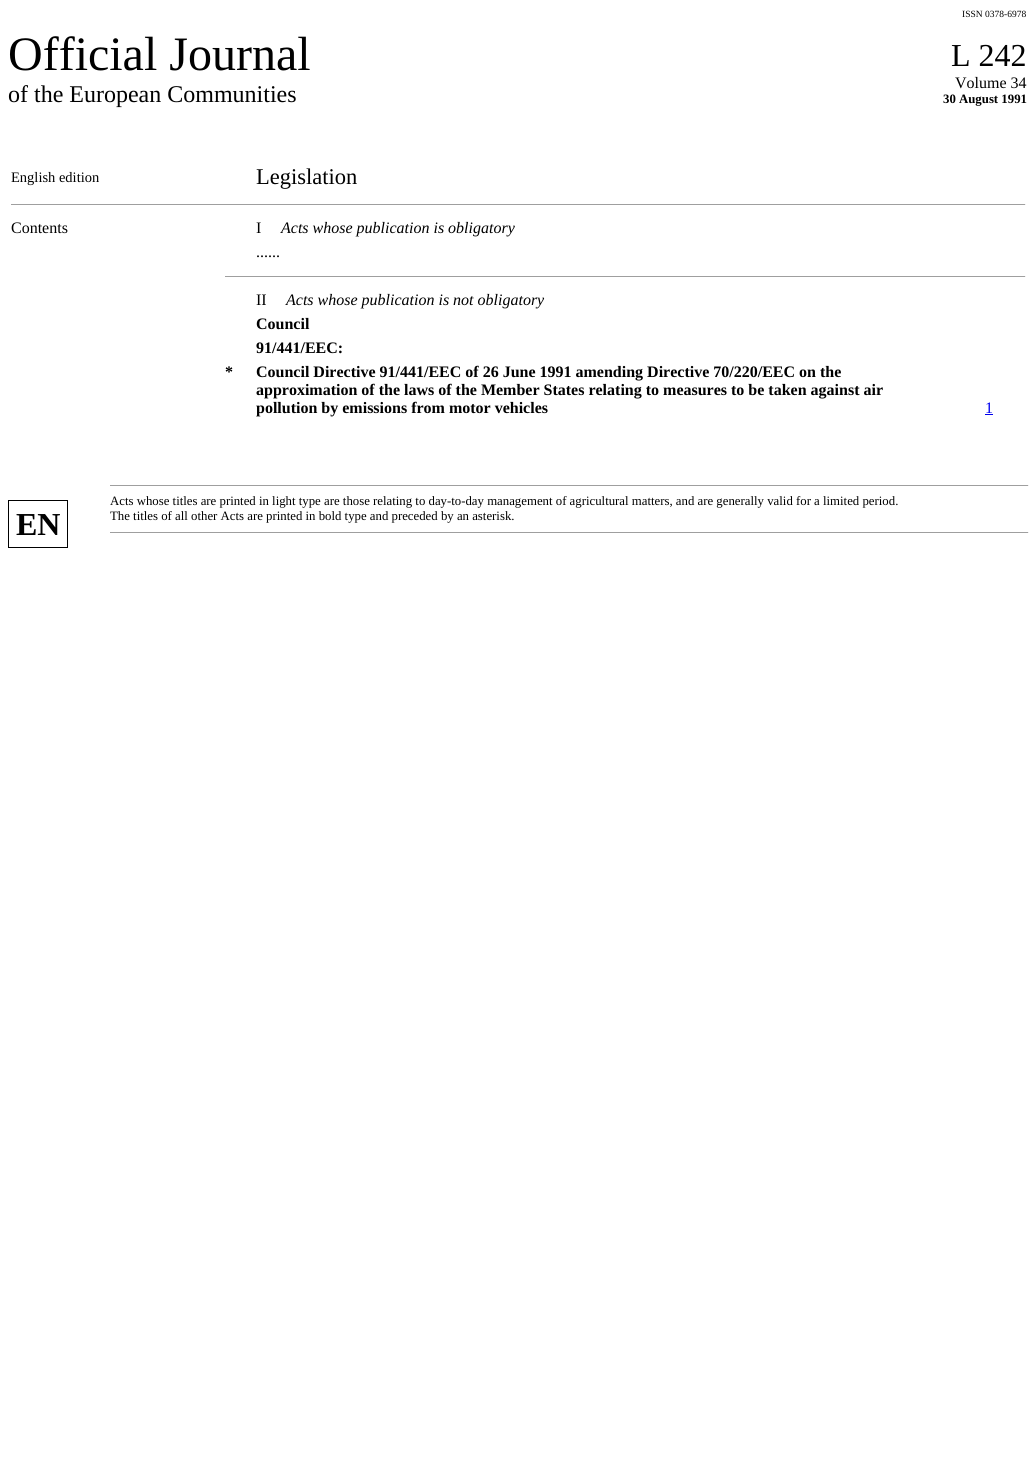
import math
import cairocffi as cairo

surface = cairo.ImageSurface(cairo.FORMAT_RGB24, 1035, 1479)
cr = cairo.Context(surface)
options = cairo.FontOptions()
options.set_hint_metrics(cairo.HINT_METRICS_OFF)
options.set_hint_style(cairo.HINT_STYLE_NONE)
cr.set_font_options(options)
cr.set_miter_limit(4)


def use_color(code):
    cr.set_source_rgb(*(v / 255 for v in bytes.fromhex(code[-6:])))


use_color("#ffffff")
cr.paint()
cr.select_font_face("Liberation Serif")
cr.set_font_size(48)
use_color("#000000")
cr.move_to(8, 70)
cr.show_text("Official Journal")
cr.set_font_size(24)
cr.move_to(8, 102)
cr.show_text("of the European Communities")
cr.set_font_size(9.5)
cr.move_to(962, 17)
cr.show_text("ISSN 0378-6978")
cr.set_font_size(32)
cr.move_to(951, 66)
cr.show_text("L 242")
cr.set_font_size(16)
cr.move_to(955, 88)
cr.show_text("Volume 34")
cr.select_font_face("Liberation Serif", cairo.FONT_SLANT_NORMAL, cairo.FONT_WEIGHT_BOLD)
cr.set_font_size(12.8)
cr.move_to(943, 103)
cr.show_text("30 August 1991")
cr.select_font_face("Liberation Serif")
cr.set_font_size(14.5)
cr.move_to(11, 182)
cr.show_text("English edition")
cr.set_font_size(22.5)
cr.move_to(256, 184)
cr.show_text("Legislation")
use_color("#9f9f9f")
cr.rectangle(11, 204, 1015, 1)
cr.fill()
use_color("#eeeeee")
cr.rectangle(1025, 204, 1, 1)
cr.fill()
cr.set_font_size(16)
use_color("#000000")
cr.move_to(11, 233)
cr.show_text("Contents")
cr.move_to(256, 233)
cr.show_text("I")
cr.select_font_face("Liberation Serif", cairo.FONT_SLANT_ITALIC)
cr.move_to(281, 233)
cr.show_text("Acts whose publication is obligatory")
cr.select_font_face("Liberation Serif")
cr.move_to(256, 257)
cr.show_text("......")
use_color("#9f9f9f")
cr.rectangle(225, 276, 801, 1)
cr.fill()
use_color("#eeeeee")
cr.rectangle(1025, 276, 1, 1)
cr.fill()
use_color("#000000")
cr.move_to(256, 305)
cr.show_text("II")
cr.select_font_face("Liberation Serif", cairo.FONT_SLANT_ITALIC)
cr.move_to(286, 305)
cr.show_text("Acts whose publication is not obligatory")
cr.select_font_face("Liberation Serif", cairo.FONT_SLANT_NORMAL, cairo.FONT_WEIGHT_BOLD)
cr.move_to(256, 329)
cr.show_text("Council")
cr.move_to(256, 353)
cr.show_text("91/441/EEC:")
cr.move_to(225, 377)
cr.show_text("*")
cr.move_to(256, 377)
cr.show_text("Council Directive 91/441/EEC of 26 June 1991 amending Directive 70/220/EEC on the")
cr.move_to(256, 395)
cr.show_text("approximation of the laws of the Member States relating to measures to be taken against air")
cr.move_to(256, 413)
cr.show_text("pollution by emissions from motor vehicles")
cr.select_font_face("Liberation Serif")
use_color("#0000ee")
cr.move_to(985, 413)
cr.show_text("1")
cr.rectangle(985, 414, 8, 1)
cr.fill()
cr.rectangle(8.5, 500.5, 59, 47)
use_color("#000000")
cr.set_line_width(1)
cr.stroke()
cr.select_font_face("Liberation Serif", cairo.FONT_SLANT_NORMAL, cairo.FONT_WEIGHT_BOLD)
cr.set_font_size(32)
cr.move_to(16, 535)
cr.show_text("EN")
use_color("#9f9f9f")
cr.rectangle(110, 485, 919, 1)
cr.fill()
use_color("#eeeeee")
cr.rectangle(1028, 485, 1, 1)
cr.fill()
cr.select_font_face("Liberation Serif")
cr.set_font_size(12.8)
use_color("#000000")
cr.move_to(110, 505)
cr.show_text("Acts whose titles are printed in light type are those relating to day-to-day management of agricultural matters, and are generally valid for a limited period.")
cr.move_to(110, 520)
cr.show_text("The titles of all other Acts are printed in bold type and preceded by an asterisk.")
use_color("#9f9f9f")
cr.rectangle(110, 532, 919, 1)
cr.fill()
use_color("#eeeeee")
cr.rectangle(1028, 532, 1, 1)
cr.fill()
surface.write_to_png("result.png")
